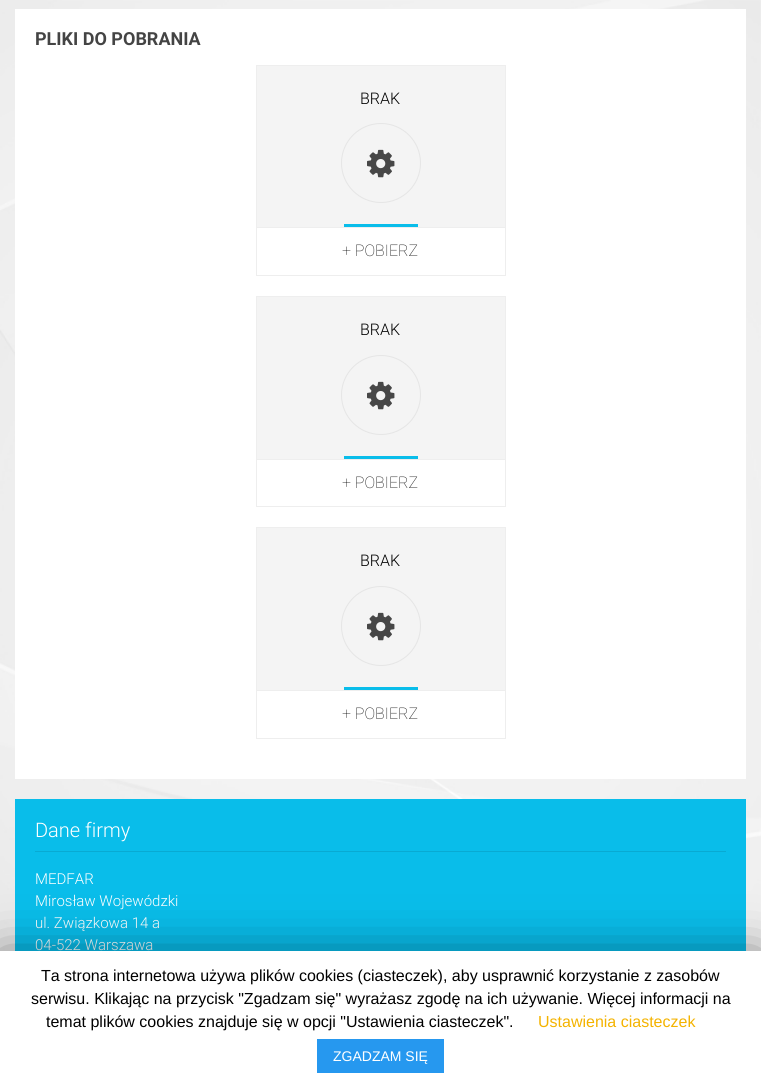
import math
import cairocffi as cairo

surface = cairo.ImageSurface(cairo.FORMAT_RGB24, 761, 1091)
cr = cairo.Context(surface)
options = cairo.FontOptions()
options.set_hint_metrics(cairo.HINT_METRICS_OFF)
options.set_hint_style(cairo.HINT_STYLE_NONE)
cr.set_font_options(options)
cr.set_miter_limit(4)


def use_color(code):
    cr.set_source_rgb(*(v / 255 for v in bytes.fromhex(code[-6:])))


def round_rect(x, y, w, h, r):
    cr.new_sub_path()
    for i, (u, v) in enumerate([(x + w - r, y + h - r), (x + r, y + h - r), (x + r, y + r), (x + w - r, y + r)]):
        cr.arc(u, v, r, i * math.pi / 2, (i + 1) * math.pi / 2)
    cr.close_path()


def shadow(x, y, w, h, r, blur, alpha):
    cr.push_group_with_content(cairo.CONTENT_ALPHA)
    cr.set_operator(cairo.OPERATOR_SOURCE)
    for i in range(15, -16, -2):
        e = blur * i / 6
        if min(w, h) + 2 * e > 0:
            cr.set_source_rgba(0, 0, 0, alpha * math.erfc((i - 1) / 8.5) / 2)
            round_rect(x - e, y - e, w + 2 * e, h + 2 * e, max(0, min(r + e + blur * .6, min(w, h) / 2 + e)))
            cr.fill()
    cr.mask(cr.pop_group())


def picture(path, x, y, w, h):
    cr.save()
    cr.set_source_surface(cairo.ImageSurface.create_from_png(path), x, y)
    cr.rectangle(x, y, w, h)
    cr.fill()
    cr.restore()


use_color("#ffffff")
cr.paint()
picture("img1.png", 0, 0, 761, 951)
use_color("#ffffff")
cr.rectangle(15, 9, 731, 770)
cr.fill()
cr.select_font_face("Roboto", cairo.FONT_SLANT_NORMAL, cairo.FONT_WEIGHT_BOLD)
cr.set_font_size(18)
use_color("#444444")
cr.move_to(35, 45)
cr.show_text("PLIKI DO POBRANIA")
cr.rectangle(256.5, 65.5, 249, 210)
use_color("#eeeeee")
cr.set_line_width(1)
cr.stroke()
use_color("#f4f4f4")
cr.rectangle(257, 66, 248, 161)
cr.fill()
cr.select_font_face("Roboto Light")
cr.set_font_size(16)
use_color("#000000")
cr.move_to(360, 104)
cr.show_text("BRAK")
cr.new_path()
cr.arc(381, 163, 39.5, 0, 2 * math.pi)
use_color("#e5e5e5")
cr.stroke()
picture("img2.png", 367, 149, 28, 29)
use_color("#09bdea")
cr.rectangle(344, 224, 74, 3)
cr.fill()
use_color("#eeeeee")
cr.rectangle(257, 227, 248, 1)
cr.fill()
cr.select_font_face("Roboto Thin")
use_color("#0b0b0b")
cr.move_to(342, 256)
cr.show_text("+ POBIERZ")
cr.rectangle(256.5, 296.5, 249, 210)
use_color("#eeeeee")
cr.stroke()
use_color("#f4f4f4")
cr.rectangle(257, 297, 248, 162)
cr.fill()
cr.select_font_face("Roboto Light")
use_color("#000000")
cr.move_to(360, 335)
cr.show_text("BRAK")
cr.new_path()
cr.arc(381, 395, 39.5, 0, 2 * math.pi)
use_color("#e5e5e5")
cr.stroke()
picture("img2.png", 367, 381, 28, 29)
use_color("#09bdea")
cr.rectangle(344, 456, 74, 3)
cr.fill()
use_color("#eeeeee")
cr.rectangle(257, 459, 248, 1)
cr.fill()
cr.select_font_face("Roboto Thin")
use_color("#0b0b0b")
cr.move_to(342, 488)
cr.show_text("+ POBIERZ")
cr.rectangle(256.5, 527.5, 249, 211)
use_color("#eeeeee")
cr.stroke()
use_color("#f4f4f4")
cr.rectangle(257, 528, 248, 162)
cr.fill()
cr.select_font_face("Roboto Light")
use_color("#000000")
cr.move_to(360, 566)
cr.show_text("BRAK")
cr.new_path()
cr.arc(381, 626, 39.5, 0, 2 * math.pi)
use_color("#e5e5e5")
cr.stroke()
picture("img2.png", 367, 612, 28, 29)
use_color("#09bdea")
cr.rectangle(344, 687, 74, 3)
cr.fill()
use_color("#eeeeee")
cr.rectangle(257, 690, 248, 1)
cr.fill()
cr.select_font_face("Roboto Thin")
use_color("#0b0b0b")
cr.move_to(342, 719)
cr.show_text("+ POBIERZ")
use_color("#09bdea")
cr.rectangle(15, 799, 731, 152)
cr.fill()
use_color("#08aad3")
cr.rectangle(35, 851, 691, 1)
cr.fill()
cr.select_font_face("Roboto Light")
cr.set_font_size(20)
use_color("#ffffff")
cr.move_to(35, 837)
cr.show_text("Dane firmy")
cr.set_font_size(15)
cr.move_to(35, 884)
cr.show_text("MEDFAR")
cr.move_to(35, 906)
cr.show_text("Mirosław Wojewódzki")
cr.move_to(35, 928)
cr.show_text("ul. Związkowa 14 a")
cr.move_to(35, 950)
cr.show_text("04-522 Warszawa")
use_color("#000000")
shadow(0, 956, 761, 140, 0, 25, 0.5)
use_color("#ffffff")
cr.rectangle(0, 951, 761, 140)
cr.fill()
cr.select_font_face("Liberation Sans")
cr.set_font_size(16)
use_color("#000000")
cr.move_to(41, 981)
cr.show_text("Ta strona internetowa używa plików cookies (ciasteczek), aby usprawnić korzystanie z zasobów")
cr.move_to(31, 1004)
cr.show_text("serwisu. Klikając na przycisk \"Zgadzam się\" wyrażasz zgodę na ich używanie. Więcej informacji na")
cr.move_to(46, 1027)
cr.show_text("temat plików cookies znajduje się w opcji \"Ustawienia ciasteczek\".")
use_color("#f4b300")
cr.move_to(538, 1027)
cr.show_text("Ustawienia ciasteczek")
use_color("#2698ef")
cr.rectangle(317, 1039, 127, 34)
cr.fill()
cr.set_font_size(14)
use_color("#ffffff")
cr.move_to(333, 1061)
cr.show_text("ZGADZAM SIĘ")
surface.write_to_png("result.png")
